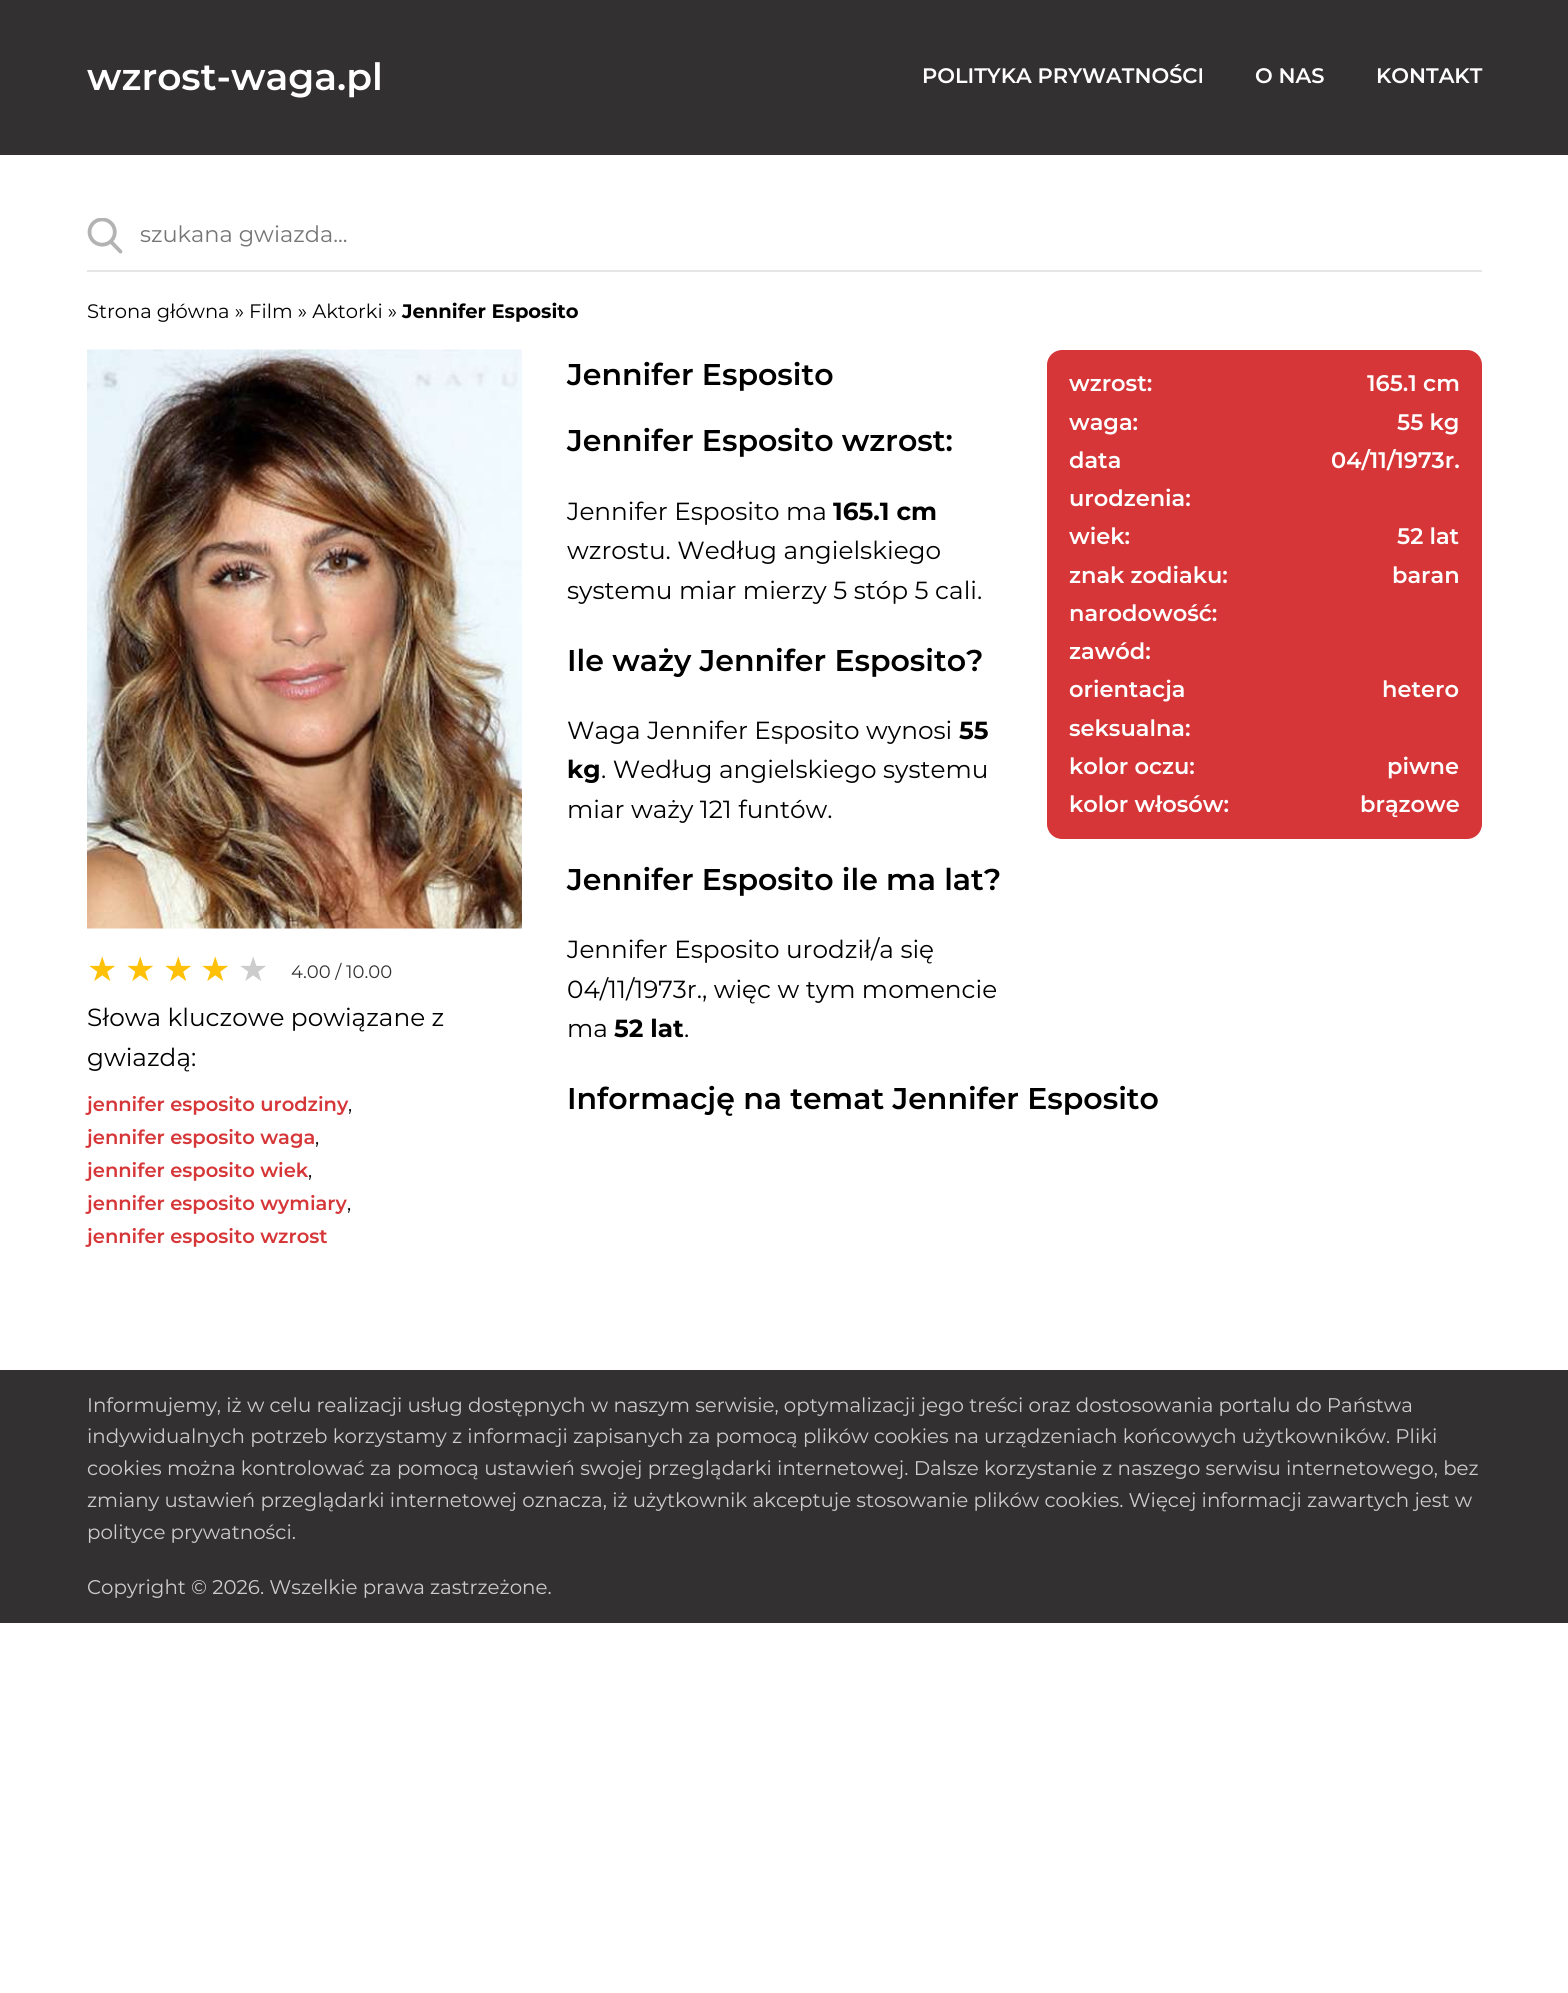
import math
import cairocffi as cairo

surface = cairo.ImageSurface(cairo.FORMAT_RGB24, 1568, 1993)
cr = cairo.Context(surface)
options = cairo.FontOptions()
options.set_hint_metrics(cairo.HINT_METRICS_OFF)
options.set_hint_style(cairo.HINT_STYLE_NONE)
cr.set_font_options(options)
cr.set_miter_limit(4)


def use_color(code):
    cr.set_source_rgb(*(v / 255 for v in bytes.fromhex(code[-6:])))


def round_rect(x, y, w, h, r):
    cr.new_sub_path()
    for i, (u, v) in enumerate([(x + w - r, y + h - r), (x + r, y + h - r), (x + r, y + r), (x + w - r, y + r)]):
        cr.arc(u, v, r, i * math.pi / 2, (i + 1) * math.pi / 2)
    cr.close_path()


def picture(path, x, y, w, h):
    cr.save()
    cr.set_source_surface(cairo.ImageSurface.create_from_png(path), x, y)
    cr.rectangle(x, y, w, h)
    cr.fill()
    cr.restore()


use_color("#ffffff")
cr.paint()
use_color("#323030")
cr.rectangle(0, 0, 1568, 155)
cr.fill()
cr.select_font_face("Montserrat SemiBold")
cr.set_font_size(37.5)
use_color("#ffffff")
cr.move_to(87, 90)
cr.show_text("wzrost-waga.pl")
cr.set_font_size(21)
cr.move_to(922, 83)
cr.show_text("POLITYKA PRYWATNOŚCI")
cr.move_to(1255, 83)
cr.show_text("O NAS")
cr.move_to(1376, 83)
cr.show_text("KONTAKT")
picture("img1.png", 87, 218, 36, 36)
use_color("#e6e6e6")
cr.rectangle(87, 270, 1395, 2)
cr.fill()
cr.select_font_face("Montserrat")
cr.set_font_size(22.5)
use_color("#757575")
cr.move_to(140, 242)
cr.show_text("szukana gwiazda...")
cr.set_font_size(19.5)
use_color("#000000")
cr.move_to(87, 318)
cr.show_text("Strona główna » Film » Aktorki »")
cr.select_font_face("Montserrat", cairo.FONT_SLANT_NORMAL, cairo.FONT_WEIGHT_BOLD)
cr.move_to(402, 318)
cr.show_text("Jennifer Esposito")
picture("img2.png", 87, 349, 435, 580)
cr.select_font_face("DejaVu Sans")
cr.set_font_size(34)
use_color("#ffc107")
cr.move_to(87, 981)
cr.show_text("★")
cr.move_to(125, 981)
cr.show_text("★")
cr.move_to(163, 981)
cr.show_text("★")
cr.move_to(200, 981)
cr.show_text("★")
use_color("#cccccc")
cr.move_to(238, 981)
cr.show_text("★")
cr.select_font_face("Montserrat")
cr.set_font_size(18)
use_color("#333333")
cr.move_to(291, 978)
cr.show_text("4.00 / 10.00")
cr.set_font_size(24.75)
use_color("#000000")
cr.move_to(87, 1026)
cr.show_text("Słowa kluczowe powiązane z")
cr.move_to(87, 1066)
cr.show_text("gwiazdą:")
cr.select_font_face("Montserrat SemiBold")
cr.set_font_size(19.5)
use_color("#d63638")
cr.move_to(87, 1111)
cr.show_text("jennifer esposito urodziny")
cr.select_font_face("Montserrat")
use_color("#000000")
cr.move_to(348, 1111)
cr.show_text(",")
cr.select_font_face("Montserrat SemiBold")
use_color("#d63638")
cr.move_to(87, 1144)
cr.show_text("jennifer esposito waga")
cr.select_font_face("Montserrat")
use_color("#000000")
cr.move_to(315, 1144)
cr.show_text(",")
cr.select_font_face("Montserrat SemiBold")
use_color("#d63638")
cr.move_to(87, 1177)
cr.show_text("jennifer esposito wiek")
cr.select_font_face("Montserrat")
use_color("#000000")
cr.move_to(308, 1177)
cr.show_text(",")
cr.select_font_face("Montserrat SemiBold")
use_color("#d63638")
cr.move_to(87, 1210)
cr.show_text("jennifer esposito wymiary")
cr.select_font_face("Montserrat")
use_color("#000000")
cr.move_to(347, 1210)
cr.show_text(",")
cr.select_font_face("Montserrat SemiBold")
use_color("#d63638")
cr.move_to(87, 1243)
cr.show_text("jennifer esposito wzrost")
cr.set_font_size(30)
use_color("#000000")
cr.move_to(567, 385)
cr.show_text("Jennifer Esposito")
cr.move_to(567, 451)
cr.show_text("Jennifer Esposito wzrost:")
cr.select_font_face("Montserrat")
cr.set_font_size(24.75)
cr.move_to(567, 520)
cr.show_text("Jennifer Esposito ma")
cr.select_font_face("Montserrat", cairo.FONT_SLANT_NORMAL, cairo.FONT_WEIGHT_BOLD)
cr.move_to(833, 520)
cr.show_text("165.1 cm")
cr.select_font_face("Montserrat")
cr.move_to(567, 559)
cr.show_text("wzrostu. Według angielskiego")
cr.move_to(567, 599)
cr.show_text("systemu miar mierzy 5 stóp 5 cali.")
cr.select_font_face("Montserrat SemiBold")
cr.set_font_size(30)
cr.move_to(567, 671)
cr.show_text("Ile waży Jennifer Esposito?")
cr.select_font_face("Montserrat")
cr.set_font_size(24.75)
cr.move_to(567, 739)
cr.show_text("Waga Jennifer Esposito wynosi")
cr.select_font_face("Montserrat", cairo.FONT_SLANT_NORMAL, cairo.FONT_WEIGHT_BOLD)
cr.move_to(959, 739)
cr.show_text("55")
cr.move_to(567, 778)
cr.show_text("kg")
cr.select_font_face("Montserrat")
cr.move_to(601, 778)
cr.show_text(". Według angielskiego systemu")
cr.move_to(567, 818)
cr.show_text("miar waży 121 funtów.")
cr.select_font_face("Montserrat SemiBold")
cr.set_font_size(30)
cr.move_to(567, 890)
cr.show_text("Jennifer Esposito ile ma lat?")
cr.select_font_face("Montserrat")
cr.set_font_size(24.75)
cr.move_to(567, 958)
cr.show_text("Jennifer Esposito urodził/a się")
cr.move_to(567, 998)
cr.show_text("04/11/1973r., więc w tym momencie")
cr.move_to(567, 1037)
cr.show_text("ma")
cr.select_font_face("Montserrat", cairo.FONT_SLANT_NORMAL, cairo.FONT_WEIGHT_BOLD)
cr.move_to(614, 1037)
cr.show_text("52 lat")
cr.select_font_face("Montserrat")
cr.move_to(684, 1037)
cr.show_text(".")
use_color("#d63638")
round_rect(1047, 350, 435, 489, 15)
cr.fill()
cr.select_font_face("Montserrat SemiBold")
cr.set_font_size(22.5)
use_color("#ffffff")
cr.move_to(1069, 391)
cr.show_text("wzrost:")
cr.move_to(1367, 391)
cr.show_text("165.1 cm")
cr.move_to(1069, 430)
cr.show_text("waga:")
cr.move_to(1397, 430)
cr.show_text("55 kg")
cr.move_to(1069, 468)
cr.show_text("data")
cr.move_to(1069, 506)
cr.show_text("urodzenia:")
cr.move_to(1331, 468)
cr.show_text("04/11/1973r.")
cr.move_to(1069, 544)
cr.show_text("wiek:")
cr.move_to(1397, 544)
cr.show_text("52 lat")
cr.move_to(1069, 583)
cr.show_text("znak zodiaku:")
cr.move_to(1392, 583)
cr.show_text("baran")
cr.move_to(1069, 621)
cr.show_text("narodowość:")
cr.move_to(1069, 659)
cr.show_text("zawód:")
cr.move_to(1069, 697)
cr.show_text("orientacja")
cr.move_to(1069, 736)
cr.show_text("seksualna:")
cr.move_to(1382, 697)
cr.show_text("hetero")
cr.move_to(1069, 774)
cr.show_text("kolor oczu:")
cr.move_to(1387, 774)
cr.show_text("piwne")
cr.move_to(1069, 812)
cr.show_text("kolor włosów:")
cr.move_to(1360, 812)
cr.show_text("brązowe")
cr.set_font_size(30)
use_color("#000000")
cr.move_to(567, 1109)
cr.show_text("Informację na temat Jennifer Esposito")
use_color("#323030")
cr.rectangle(0, 1370, 1568, 253)
cr.fill()
cr.select_font_face("Montserrat")
cr.set_font_size(19.8)
use_color("#cccccc")
cr.move_to(87, 1412)
cr.show_text("Informujemy, iż w celu realizacji usług dostępnych w naszym serwisie, optymalizacji jego treści oraz dostosowania portalu do Państwa")
cr.move_to(87, 1443)
cr.show_text("indywidualnych potrzeb korzystamy z informacji zapisanych za pomocą plików cookies na urządzeniach końcowych użytkowników. Pliki")
cr.move_to(87, 1475)
cr.show_text("cookies można kontrolować za pomocą ustawień swojej przeglądarki internetowej. Dalsze korzystanie z naszego serwisu internetowego, bez")
cr.move_to(87, 1507)
cr.show_text("zmiany ustawień przeglądarki internetowej oznacza, iż użytkownik akceptuje stosowanie plików cookies. Więcej informacji zawartych jest w")
cr.move_to(87, 1539)
cr.show_text("polityce prywatności.")
cr.move_to(87, 1594)
cr.show_text("Copyright © 2026. Wszelkie prawa zastrzeżone.")
surface.write_to_png("result.png")
